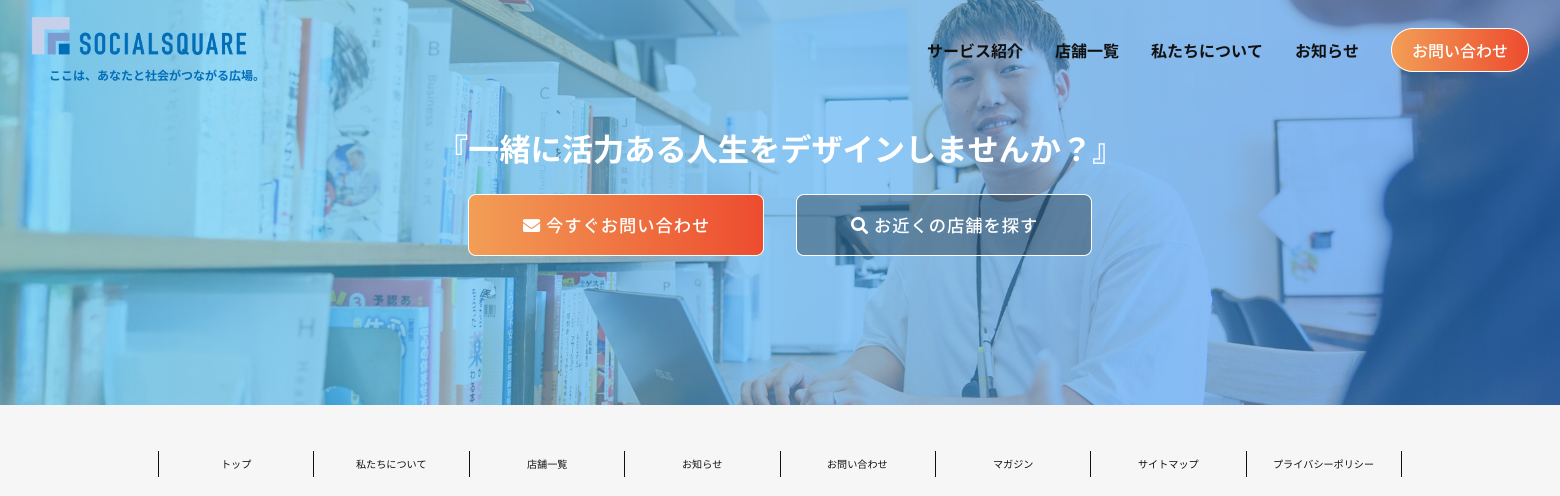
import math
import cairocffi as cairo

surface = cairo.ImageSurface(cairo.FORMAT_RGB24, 1560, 496)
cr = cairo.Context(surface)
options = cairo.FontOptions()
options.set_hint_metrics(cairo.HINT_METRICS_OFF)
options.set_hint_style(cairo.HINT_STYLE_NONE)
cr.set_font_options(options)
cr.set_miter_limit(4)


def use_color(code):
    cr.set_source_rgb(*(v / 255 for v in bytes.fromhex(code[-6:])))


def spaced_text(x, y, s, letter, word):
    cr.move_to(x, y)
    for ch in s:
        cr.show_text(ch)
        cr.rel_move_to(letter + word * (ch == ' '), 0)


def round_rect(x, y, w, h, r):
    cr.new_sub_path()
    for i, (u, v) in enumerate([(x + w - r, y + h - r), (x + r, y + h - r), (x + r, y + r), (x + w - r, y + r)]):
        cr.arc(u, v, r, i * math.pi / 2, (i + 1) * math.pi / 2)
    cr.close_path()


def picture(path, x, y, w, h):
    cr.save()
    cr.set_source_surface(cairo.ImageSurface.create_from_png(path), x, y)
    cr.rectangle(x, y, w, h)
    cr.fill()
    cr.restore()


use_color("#f6f6f6")
cr.paint()
picture("img2.png", 0, 0, 1560, 405)
cr.select_font_face("Noto Sans JP", cairo.FONT_SLANT_NORMAL, cairo.FONT_WEIGHT_BOLD)
cr.set_font_size(16)
use_color("#111111")
cr.move_to(927, 57)
cr.show_text("サービス紹介")
cr.move_to(1055, 57)
cr.show_text("店舗一覧")
cr.move_to(1151, 57)
cr.show_text("私たちについて")
cr.move_to(1295, 57)
cr.show_text("お知らせ")
cr.save()
round_rect(1391, 28, 138, 44, 22)
cr.clip()
gradient = cairo.LinearGradient(1392, 50, 1528, 50)
gradient.add_color_stop_rgba(0, 0.949, 0.62, 0.337, 1)
gradient.add_color_stop_rgba(1, 0.929, 0.298, 0.184, 1)
cr.set_source(gradient)
cr.rectangle(1392, 28, 136, 44)
cr.fill()
cr.restore()
round_rect(1391.5, 28.5, 137, 43, 21.5)
use_color("#ffffff")
cr.set_line_width(1)
cr.stroke()
cr.select_font_face("Noto Sans JP Medium")
cr.move_to(1412, 57)
cr.show_text("お問い合わせ")
picture("img1.png", 31, 17, 216, 38)
cr.select_font_face("Noto Sans JP", cairo.FONT_SLANT_NORMAL, cairo.FONT_WEIGHT_BOLD)
cr.set_font_size(12)
use_color("#036eb8")
cr.move_to(49, 80)
cr.show_text("ここは、あなたと社会がつながる広場。")
cr.set_font_size(31.2)
use_color("#ffffff")
cr.move_to(437, 161)
cr.show_text("『一緒に活力ある人生をデザインしませんか？』")
cr.save()
round_rect(468, 194, 296, 62, 8)
cr.clip()
gradient = cairo.LinearGradient(469, 225, 763, 225)
gradient.add_color_stop_rgba(0, 0.949, 0.62, 0.337, 1)
gradient.add_color_stop_rgba(1, 0.929, 0.298, 0.184, 1)
cr.set_source(gradient)
cr.rectangle(469, 194, 294, 62)
cr.fill()
cr.restore()
round_rect(468.5, 194.5, 295, 61, 7.5)
cr.stroke()
picture("img3.png", 523, 219, 18, 13)
cr.select_font_face("Noto Sans JP Medium")
cr.set_font_size(17.25)
spaced_text(546, 232, "今すぐお問い合わせ", 1, 0)
cr.set_source_rgba(0, 0, 0, 0.3)
round_rect(796.5, 194.5, 295, 61, 7.5)
cr.fill_preserve()
use_color("#ffffff")
cr.stroke()
picture("img4.png", 851, 217, 18, 18)
spaced_text(874, 232, "お近くの店舗を探す", 1, 0)
use_color("#111111")
cr.rectangle(158, 451, 1, 26)
cr.fill()
cr.select_font_face("Noto Sans JP")
cr.set_font_size(10.1)
cr.move_to(221, 468)
cr.show_text("トップ")
cr.rectangle(313, 451, 1, 26)
cr.fill()
cr.move_to(356, 468)
cr.show_text("私たちについて")
cr.rectangle(469, 451, 1, 26)
cr.fill()
cr.move_to(527, 468)
cr.show_text("店舗一覧")
cr.rectangle(624, 451, 1, 26)
cr.fill()
cr.move_to(682, 468)
cr.show_text("お知らせ")
cr.rectangle(780, 451, 1, 26)
cr.fill()
cr.move_to(827, 468)
cr.show_text("お問い合わせ")
cr.rectangle(935, 451, 1, 26)
cr.fill()
cr.move_to(993, 468)
cr.show_text("マガジン")
cr.rectangle(1090, 451, 1, 26)
cr.fill()
cr.move_to(1138, 468)
cr.show_text("サイトマップ")
cr.rectangle(1401, 451, 1, 26)
cr.fill()
cr.rectangle(1246, 451, 1, 26)
cr.fill()
cr.move_to(1273, 468)
cr.show_text("プライバシーポリシー")
surface.write_to_png("result.png")
